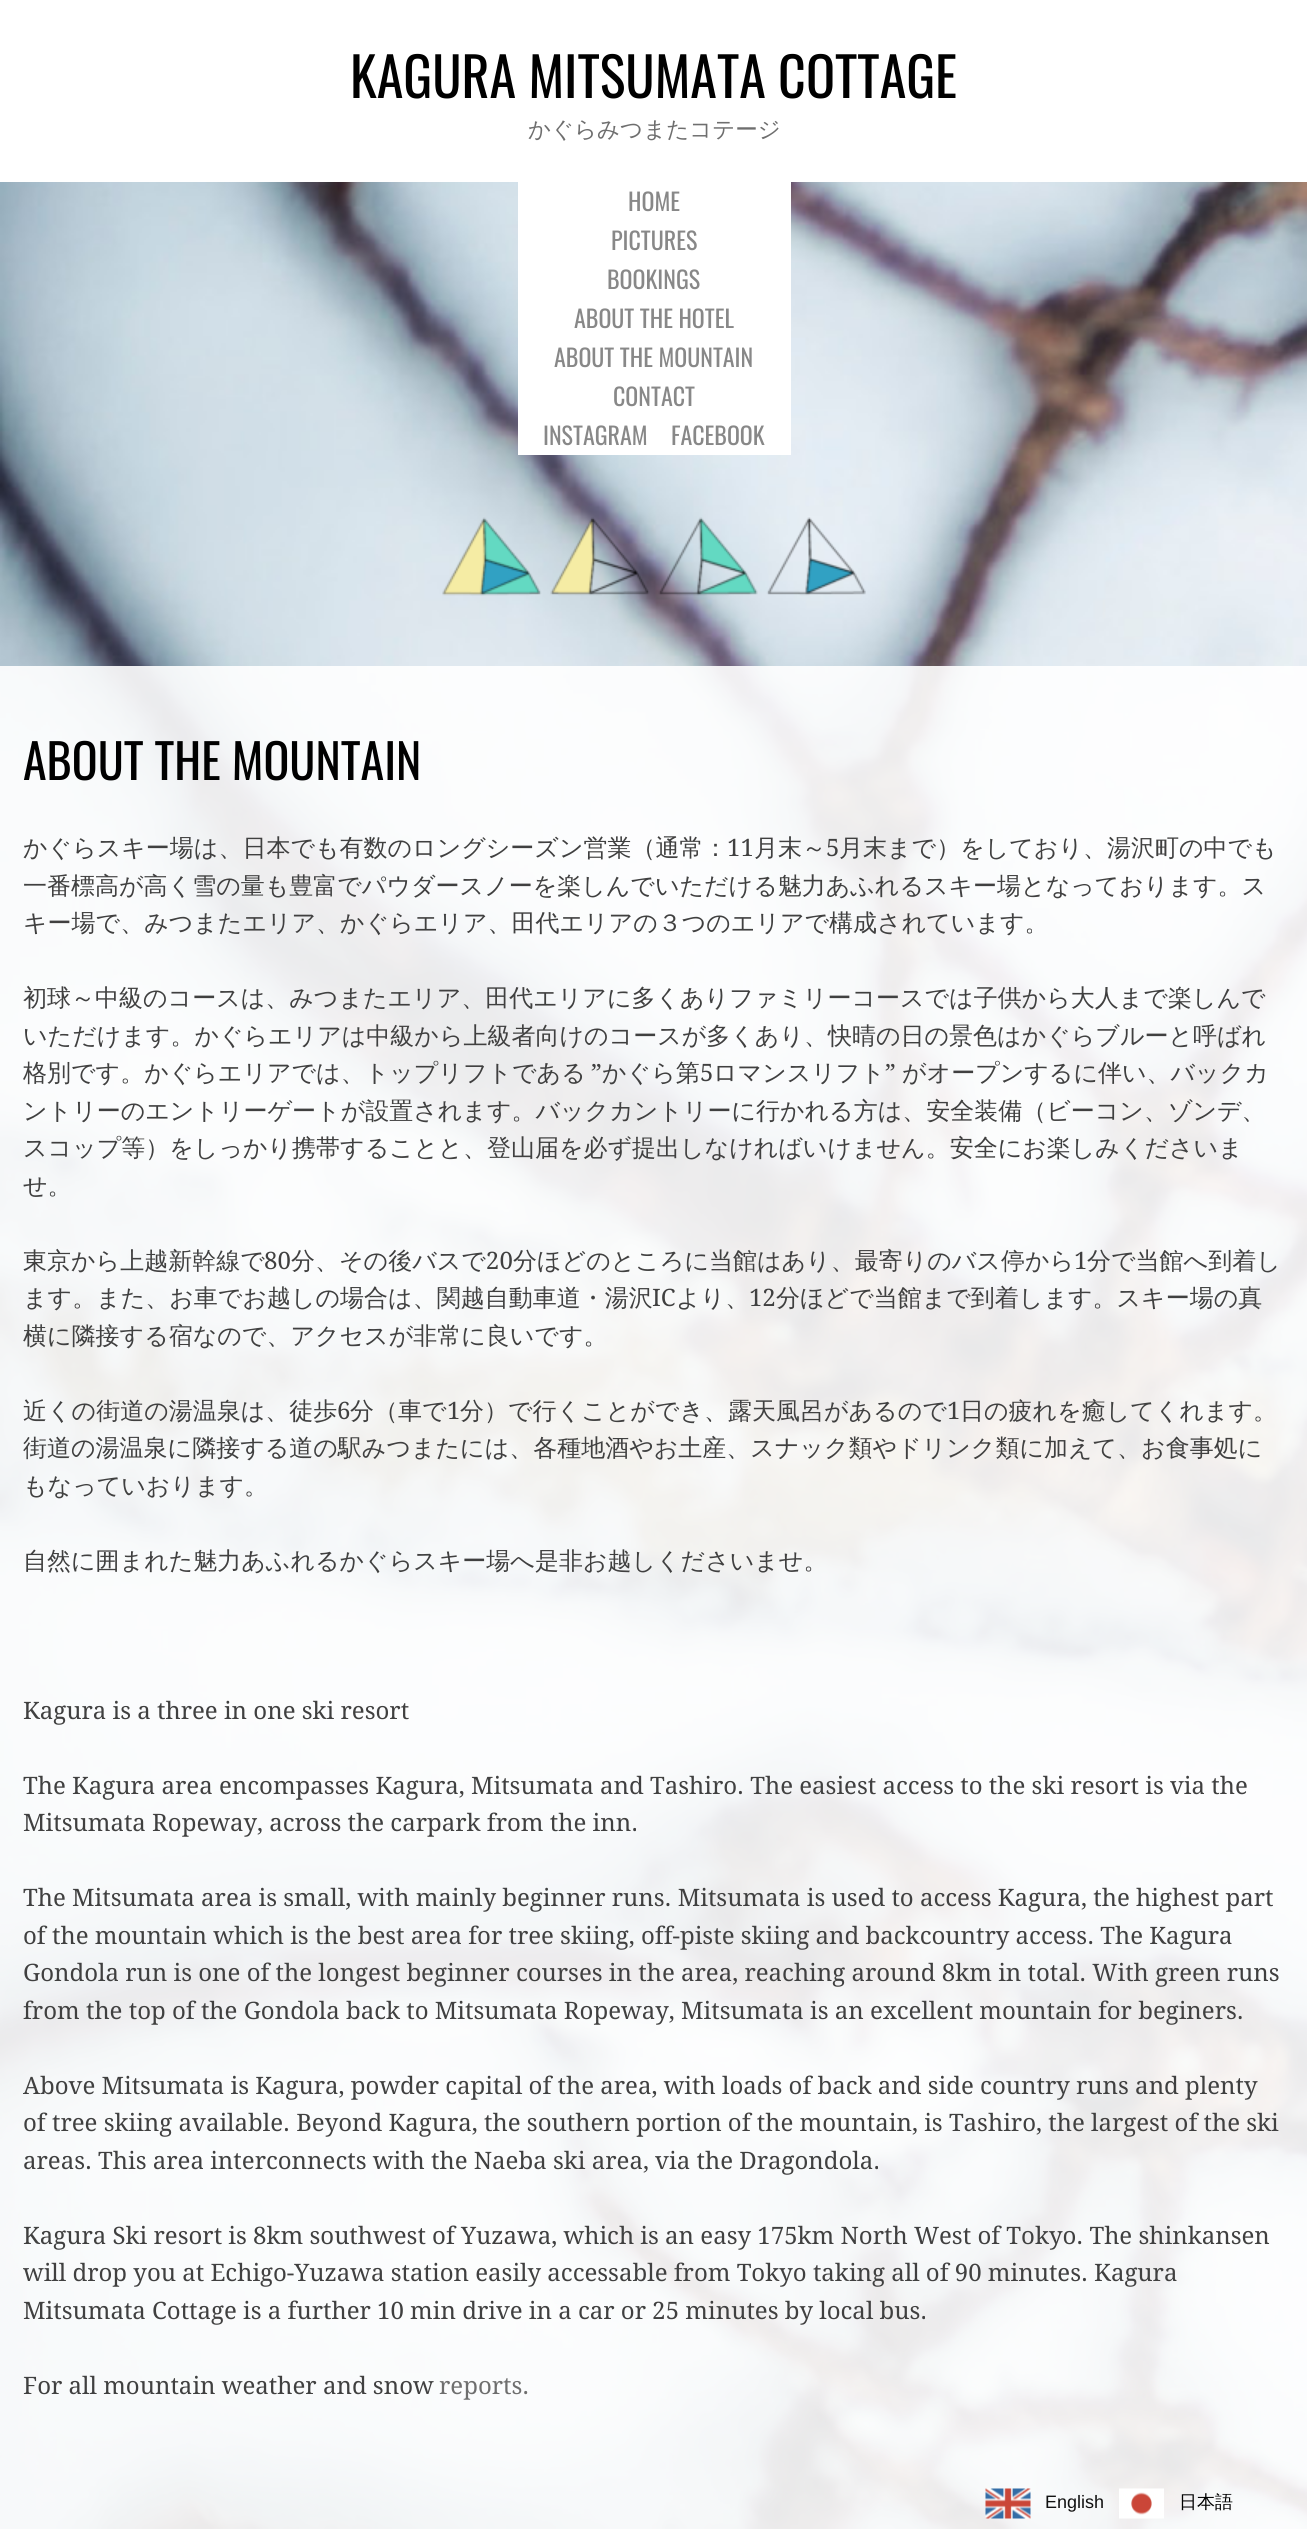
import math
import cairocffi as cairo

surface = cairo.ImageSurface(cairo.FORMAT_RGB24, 1307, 2529)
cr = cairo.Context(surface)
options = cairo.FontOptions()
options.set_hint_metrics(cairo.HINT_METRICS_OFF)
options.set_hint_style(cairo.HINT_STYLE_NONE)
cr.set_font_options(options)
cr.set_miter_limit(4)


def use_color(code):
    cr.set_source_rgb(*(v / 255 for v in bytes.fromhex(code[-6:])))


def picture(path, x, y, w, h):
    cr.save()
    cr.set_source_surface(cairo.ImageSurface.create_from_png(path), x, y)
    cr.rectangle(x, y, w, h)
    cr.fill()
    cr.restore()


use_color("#ffffff")
cr.paint()
picture("img1.png", 0, 182, 1307, 2347)
cr.select_font_face("Oswald")
cr.set_font_size(54)
use_color("#000000")
cr.move_to(350, 98)
cr.show_text("KAGURA MITSUMATA COTTAGE")
cr.select_font_face("WenQuanYi Zen Hei Medium")
cr.set_font_size(22.5)
use_color("#6e6e6e")
cr.move_to(528, 137)
cr.show_text("かぐらみつまたコテージ")
use_color("#ffffff")
cr.rectangle(518, 182, 273, 273)
cr.fill()
cr.select_font_face("Oswald")
cr.set_font_size(24)
use_color("#888888")
cr.move_to(628, 211)
cr.show_text("HOME")
cr.move_to(611, 250)
cr.show_text("PICTURES")
cr.move_to(607, 289)
cr.show_text("BOOKINGS")
cr.move_to(574, 328)
cr.show_text("ABOUT THE HOTEL")
cr.move_to(554, 367)
cr.show_text("ABOUT THE MOUNTAIN")
cr.move_to(613, 406)
cr.show_text("CONTACT")
cr.move_to(543, 445)
cr.show_text("INSTAGRAM")
cr.move_to(671, 445)
cr.show_text("FACEBOOK")
picture("img2.png", 442, 517, 424, 79)
cr.set_source_rgba(1, 1, 1, 0.9)
cr.rectangle(0, 666, 1307, 30)
cr.fill()
cr.rectangle(0, 696, 1307, 1833)
cr.fill()
cr.set_font_size(48)
use_color("#000000")
cr.move_to(23, 780)
cr.show_text("ABOUT THE MOUNTAIN")
cr.select_font_face("WenQuanYi Zen Hei Medium")
cr.set_font_size(24)
use_color("#404040")
cr.move_to(23, 856)
cr.show_text("かぐらスキー場は、日本でも有数のロングシーズン営業（通常：")
cr.select_font_face("Droid Serif")
cr.move_to(727, 856)
cr.show_text("11")
cr.select_font_face("WenQuanYi Zen Hei Medium")
cr.move_to(754, 856)
cr.show_text("月末～")
cr.select_font_face("Droid Serif")
cr.move_to(826, 856)
cr.show_text("5")
cr.select_font_face("WenQuanYi Zen Hei Medium")
cr.move_to(839, 856)
cr.show_text("月末まで）をしており、湯沢町の中でも")
cr.move_to(23, 894)
cr.show_text("一番標高が高く雪の量も豊富でパウダースノーを楽しんでいただける魅力あふれるスキー場となっております。ス")
cr.move_to(23, 931)
cr.show_text("キー場で、みつまたエリア、かぐらエリア、田代エリアの３つのエリアで構成されています。")
cr.move_to(23, 1006)
cr.show_text("初球～中級のコースは、みつまたエリア、田代エリアに多くありファミリーコースでは子供から大人まで楽しんで")
cr.move_to(23, 1044)
cr.show_text("いただけます。かぐらエリアは中級から上級者向けのコースが多くあり、快晴の日の景色はかぐらブルーと呼ばれ")
cr.move_to(23, 1081)
cr.show_text("格別です。かぐらエリアでは、トップリフトである")
cr.select_font_face("Droid Serif")
cr.move_to(591, 1081)
cr.show_text("”")
cr.select_font_face("WenQuanYi Zen Hei Medium")
cr.move_to(602, 1081)
cr.show_text("かぐら第")
cr.select_font_face("Droid Serif")
cr.move_to(700, 1081)
cr.show_text("5")
cr.select_font_face("WenQuanYi Zen Hei Medium")
cr.move_to(713, 1081)
cr.show_text("ロマンスリフト")
cr.select_font_face("Droid Serif")
cr.move_to(885, 1081)
cr.show_text("”")
cr.select_font_face("WenQuanYi Zen Hei Medium")
cr.move_to(902, 1081)
cr.show_text("がオープンするに伴い、バックカ")
cr.move_to(23, 1119)
cr.show_text("ントリーのエントリーゲートが設置されます。バックカントリーに行かれる方は、安全装備（ビーコン、ゾンデ、")
cr.move_to(23, 1156)
cr.show_text("スコップ等）をしっかり携帯することと、登山届を必ず提出しなければいけません。安全にお楽しみくださいま")
cr.move_to(23, 1194)
cr.show_text("せ。")
cr.move_to(23, 1269)
cr.show_text("東京から上越新幹線で")
cr.select_font_face("Droid Serif")
cr.move_to(264, 1269)
cr.show_text("80")
cr.select_font_face("WenQuanYi Zen Hei Medium")
cr.move_to(291, 1269)
cr.show_text("分、その後バスで")
cr.select_font_face("Droid Serif")
cr.move_to(486, 1269)
cr.show_text("20")
cr.select_font_face("WenQuanYi Zen Hei Medium")
cr.move_to(513, 1269)
cr.show_text("分ほどのところに当館はあり、最寄りのバス停から")
cr.select_font_face("Droid Serif")
cr.move_to(1074, 1269)
cr.show_text("1")
cr.select_font_face("WenQuanYi Zen Hei Medium")
cr.move_to(1087, 1269)
cr.show_text("分で当館へ到着し")
cr.move_to(23, 1306)
cr.show_text("ます。また、お車でお越しの場合は、関越自動車道・湯沢")
cr.select_font_face("Droid Serif")
cr.move_to(652, 1306)
cr.show_text("IC")
cr.select_font_face("WenQuanYi Zen Hei Medium")
cr.move_to(676, 1306)
cr.show_text("より、")
cr.select_font_face("Droid Serif")
cr.move_to(749, 1306)
cr.show_text("12")
cr.select_font_face("WenQuanYi Zen Hei Medium")
cr.move_to(776, 1306)
cr.show_text("分ほどで当館まで到着します。スキー場の真")
cr.move_to(23, 1344)
cr.show_text("横に隣接する宿なので、アクセスが非常に良いです。")
cr.move_to(23, 1419)
cr.show_text("近くの街道の湯温泉は、徒歩")
cr.select_font_face("Droid Serif")
cr.move_to(337, 1419)
cr.show_text("6")
cr.select_font_face("WenQuanYi Zen Hei Medium")
cr.move_to(350, 1419)
cr.show_text("分（車で")
cr.select_font_face("Droid Serif")
cr.move_to(447, 1419)
cr.show_text("1")
cr.select_font_face("WenQuanYi Zen Hei Medium")
cr.move_to(460, 1419)
cr.show_text("分）で行くことができ、露天風呂があるので")
cr.select_font_face("Droid Serif")
cr.move_to(947, 1419)
cr.show_text("1")
cr.select_font_face("WenQuanYi Zen Hei Medium")
cr.move_to(960, 1419)
cr.show_text("日の疲れを癒してくれます。")
cr.move_to(23, 1456)
cr.show_text("街道の湯温泉に隣接する道の駅みつまたには、各種地酒やお土産、スナック類やドリンク類に加えて、お食事処に")
cr.move_to(23, 1494)
cr.show_text("もなっていおります。")
cr.move_to(23, 1569)
cr.show_text("自然に囲まれた魅力あふれるかぐらスキー場へ是非お越しくださいませ。")
cr.select_font_face("Droid Serif")
cr.move_to(23, 1719)
cr.show_text("Kagura is a three in one ski resort")
cr.move_to(23, 1794)
cr.show_text("The Kagura area encompasses Kagura, Mitsumata and Tashiro. The easiest access to the ski resort is via the")
cr.move_to(23, 1831)
cr.show_text("Mitsumata Ropeway, across the carpark from the inn.")
cr.move_to(23, 1906)
cr.show_text("The Mitsumata area is small, with mainly beginner runs. Mitsumata is used to access Kagura, the highest part")
cr.move_to(23, 1944)
cr.show_text("of the mountain which is the best area for tree skiing, off-piste skiing and backcountry access. The Kagura")
cr.move_to(23, 1981)
cr.show_text("Gondola run is one of the longest beginner courses in the area, reaching around 8km in total. With green runs")
cr.move_to(23, 2019)
cr.show_text("from the top of the Gondola back to Mitsumata Ropeway, Mitsumata is an excellent mountain for beginers.")
cr.move_to(23, 2094)
cr.show_text("Above Mitsumata is Kagura, powder capital of the area, with loads of back and side country runs and plenty")
cr.move_to(23, 2131)
cr.show_text("of tree skiing available. Beyond Kagura, the southern portion of the mountain, is Tashiro, the largest of the ski")
cr.move_to(23, 2169)
cr.show_text("areas. This area interconnects with the Naeba ski area, via the Dragondola.")
cr.move_to(23, 2244)
cr.show_text("Kagura Ski resort is 8km southwest of Yuzawa, which is an easy 175km North West of Tokyo. The shinkansen")
cr.move_to(23, 2281)
cr.show_text("will drop you at Echigo-Yuzawa station easily accessable from Tokyo taking all of 90 minutes. Kagura")
cr.move_to(23, 2319)
cr.show_text("Mitsumata Cottage is a further 10 min drive in a car or 25 minutes by local bus.")
cr.move_to(23, 2394)
cr.show_text("For all mountain weather and snow")
use_color("#6e6e6e")
cr.move_to(439, 2394)
cr.show_text("reports.")
picture("img3.png", 985, 2488, 46, 31)
cr.select_font_face("Liberation Sans")
cr.set_font_size(18)
use_color("#111111")
cr.move_to(1045, 2508)
cr.show_text("English")
picture("img4.png", 1119, 2488, 45, 31)
cr.select_font_face("WenQuanYi Zen Hei Medium")
use_color("#000000")
cr.move_to(1179, 2508)
cr.show_text("日本語")
surface.write_to_png("result.png")
